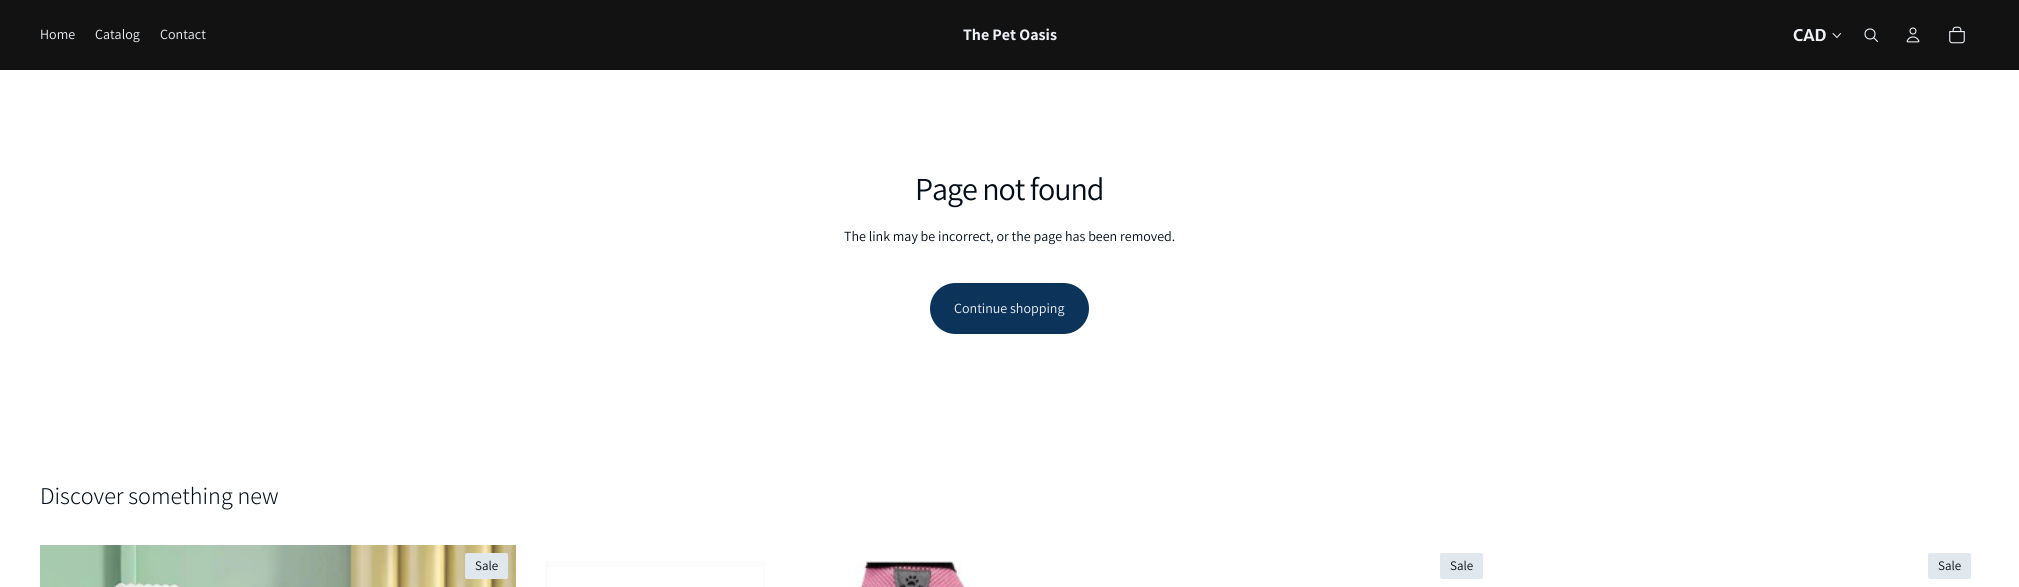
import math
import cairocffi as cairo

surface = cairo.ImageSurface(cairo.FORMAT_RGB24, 2019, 587)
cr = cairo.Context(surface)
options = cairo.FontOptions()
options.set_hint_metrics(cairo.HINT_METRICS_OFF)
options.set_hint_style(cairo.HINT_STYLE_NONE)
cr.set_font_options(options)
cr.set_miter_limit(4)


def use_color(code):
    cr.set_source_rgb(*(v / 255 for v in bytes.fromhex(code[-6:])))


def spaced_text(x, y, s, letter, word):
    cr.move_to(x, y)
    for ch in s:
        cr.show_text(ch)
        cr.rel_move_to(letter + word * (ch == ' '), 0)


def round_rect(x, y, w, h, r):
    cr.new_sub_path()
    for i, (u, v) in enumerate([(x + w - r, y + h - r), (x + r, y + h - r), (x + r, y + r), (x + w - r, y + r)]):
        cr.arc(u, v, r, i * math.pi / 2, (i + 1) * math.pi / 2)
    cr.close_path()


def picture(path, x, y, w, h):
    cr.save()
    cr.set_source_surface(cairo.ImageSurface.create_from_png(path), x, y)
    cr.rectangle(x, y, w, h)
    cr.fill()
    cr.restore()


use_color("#ffffff")
cr.paint()
use_color("#121212")
cr.rectangle(0, 0, 2019, 70)
cr.fill()
cr.select_font_face("Assistant")
cr.set_font_size(14)
use_color("#eef2f7")
cr.move_to(40, 39)
cr.show_text("Home")
cr.move_to(95, 39)
cr.show_text("Catalog")
cr.move_to(160, 39)
cr.show_text("Contact")
cr.select_font_face("Assistant", cairo.FONT_SLANT_NORMAL, cairo.FONT_WEIGHT_BOLD)
cr.set_font_size(16)
cr.move_to(963, 40)
cr.show_text("The Pet Oasis")
cr.select_font_face("Merriweather Sans", cairo.FONT_SLANT_NORMAL, cairo.FONT_WEIGHT_BOLD)
cr.move_to(1793, 41)
cr.show_text("CAD")
cr.new_path()
cr.move_to(1840.5, 33.5)
cr.line_to(1837, 37.5)
cr.line_to(1833, 33.5)
cr.set_line_width(1)
cr.set_line_cap(cairo.LINE_CAP_ROUND)
cr.set_line_join(cairo.LINE_JOIN_ROUND)
cr.stroke()
cr.arc(1870, 34, 5, 0, 2 * math.pi)
cr.set_line_width(1.1)
cr.set_line_cap(cairo.LINE_CAP_BUTT)
cr.set_line_join(cairo.LINE_JOIN_MITER)
cr.stroke()
cr.new_path()
cr.move_to(1874, 38)
cr.line_to(1877.5, 41.5)
cr.set_line_cap(cairo.LINE_CAP_ROUND)
cr.set_line_join(cairo.LINE_JOIN_ROUND)
cr.stroke()
picture("img1.png", 1906, 27, 14, 16)
picture("img2.png", 1949, 26, 16, 18)
cr.select_font_face("Assistant")
cr.set_font_size(32)
use_color("#030d17")
spaced_text(915, 200, "Page not found", -1, 0)
cr.set_font_size(14)
cr.move_to(844, 241)
cr.show_text("The link may be incorrect, or the page has been removed.")
use_color("#0c345a")
round_rect(930, 283, 159, 51, 25.5)
cr.fill()
use_color("#eef2f7")
cr.move_to(954, 313)
cr.show_text("Continue shopping")
cr.select_font_face("Assistant Light")
cr.set_font_size(24)
use_color("#030d17")
cr.move_to(40, 504)
cr.show_text("Discover something new")
picture("img3.png", 40, 545, 476, 42)
use_color("#e1e8ed")
round_rect(465, 553, 43, 26, 2)
cr.fill()
cr.select_font_face("Assistant")
cr.set_font_size(13)
use_color("#030d17")
cr.move_to(475, 570)
cr.show_text("Sale")
picture("img4.png", 545, 561, 425, 26)
use_color("#e1e8ed")
round_rect(1440, 553, 43, 26, 2)
cr.fill()
use_color("#030d17")
cr.move_to(1450, 570)
cr.show_text("Sale")
use_color("#e1e8ed")
round_rect(1928, 553, 43, 26, 2)
cr.fill()
use_color("#030d17")
cr.move_to(1938, 570)
cr.show_text("Sale")
surface.write_to_png("result.png")
